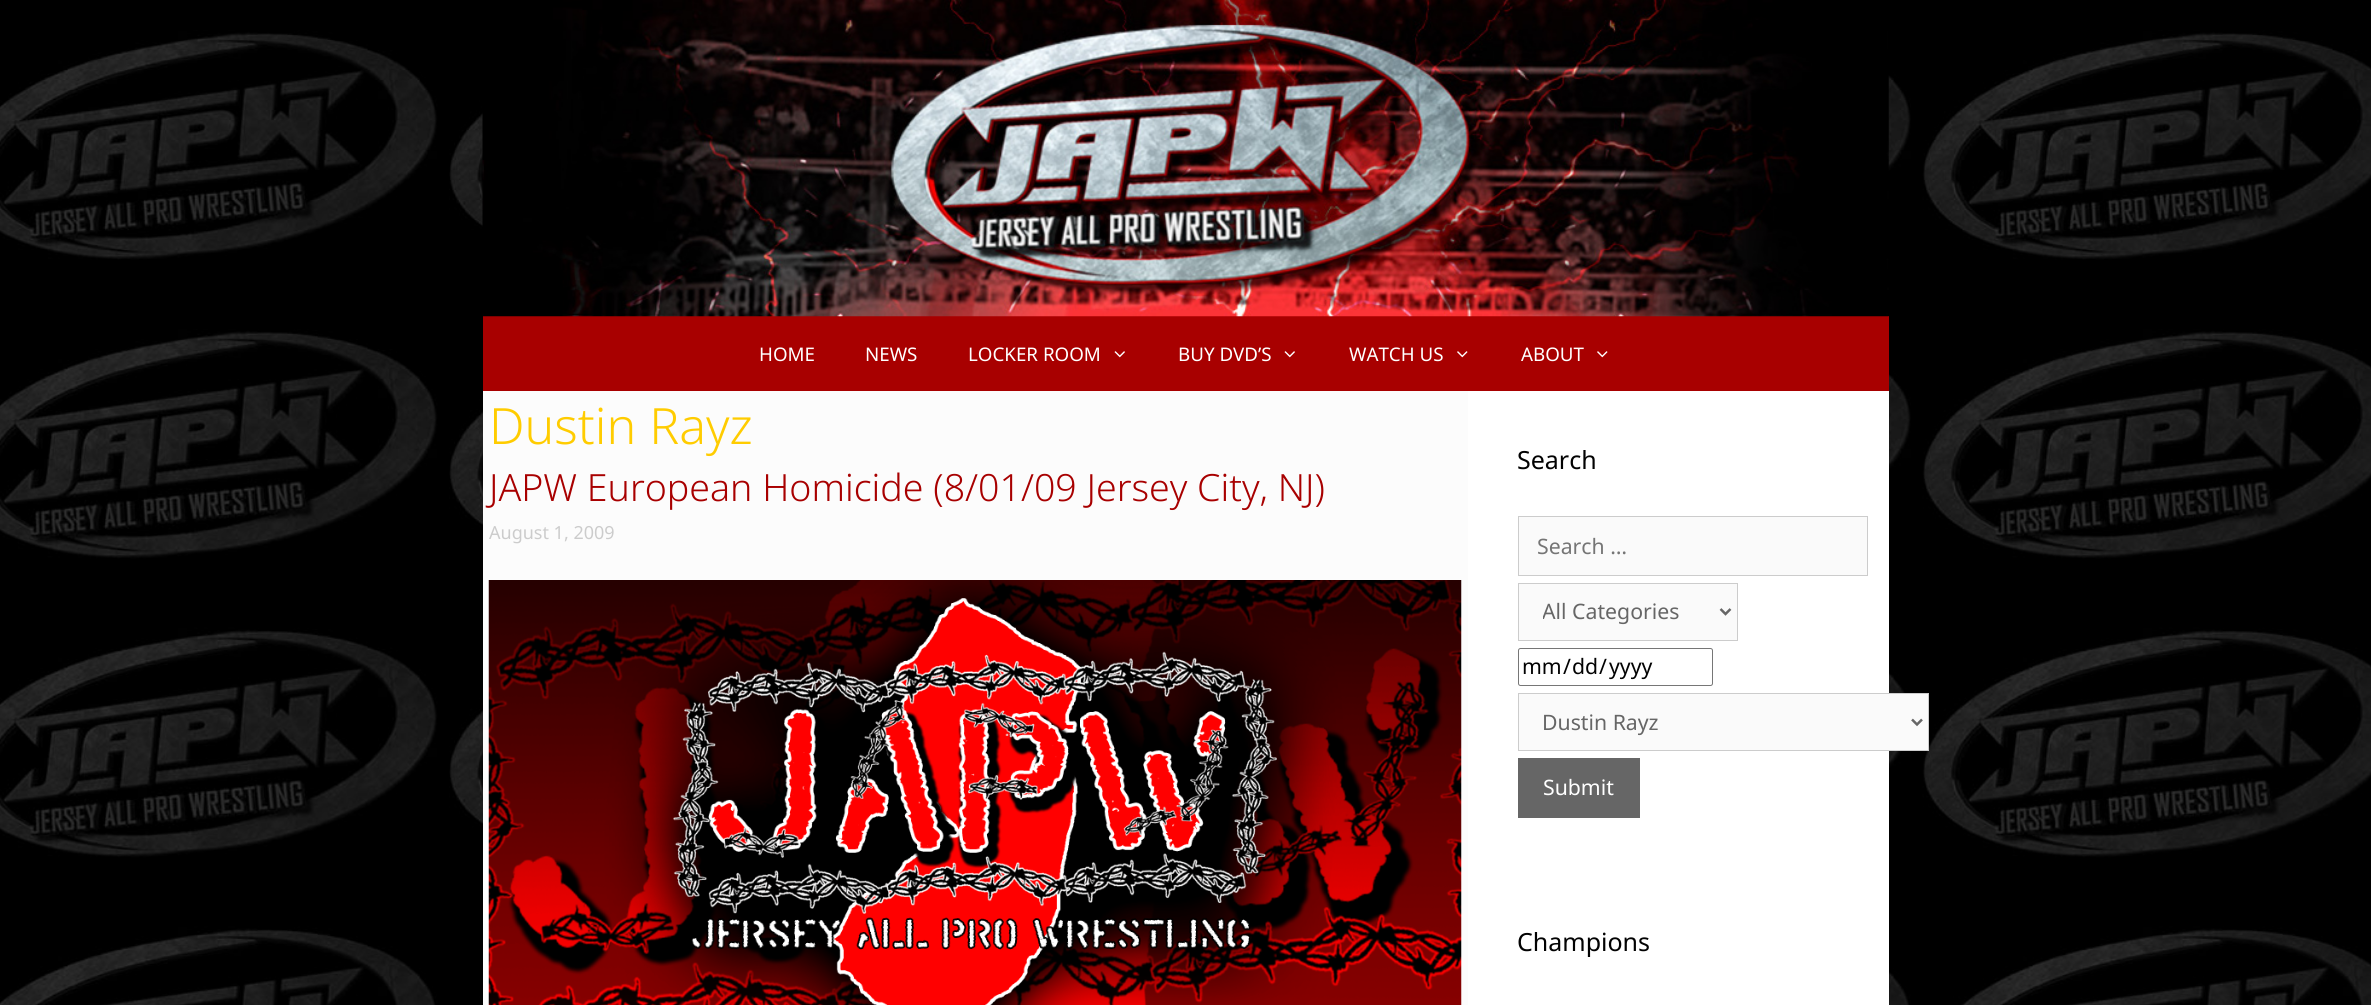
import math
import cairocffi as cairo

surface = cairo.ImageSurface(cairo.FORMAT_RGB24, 2371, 1005)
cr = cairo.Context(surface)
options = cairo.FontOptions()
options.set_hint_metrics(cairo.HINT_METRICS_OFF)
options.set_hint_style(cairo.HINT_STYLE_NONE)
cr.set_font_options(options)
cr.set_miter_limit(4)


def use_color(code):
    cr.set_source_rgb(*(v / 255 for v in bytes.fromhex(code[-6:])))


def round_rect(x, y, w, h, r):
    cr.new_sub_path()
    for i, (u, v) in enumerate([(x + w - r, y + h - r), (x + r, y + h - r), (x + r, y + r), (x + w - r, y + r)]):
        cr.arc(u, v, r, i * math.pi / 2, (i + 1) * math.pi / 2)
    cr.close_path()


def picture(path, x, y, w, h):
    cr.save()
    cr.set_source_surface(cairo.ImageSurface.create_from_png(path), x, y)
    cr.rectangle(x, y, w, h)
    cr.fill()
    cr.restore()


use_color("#ffffff")
cr.paint()
picture("img1.png", 0, 0, 2371, 1005)
use_color("#a80000")
cr.rectangle(483, 316, 1406, 75)
cr.fill()
picture("img2.png", 482, 0, 1407, 317)
cr.select_font_face("Noto Sans")
cr.set_font_size(18.75)
use_color("#ffffff")
cr.move_to(759, 361)
cr.show_text("HOME")
cr.move_to(865, 361)
cr.show_text("NEWS")
cr.move_to(968, 361)
cr.show_text("LOCKER ROOM")
picture("img3.png", 1114, 351, 11, 7)
cr.move_to(1178, 361)
cr.show_text("BUY DVD’S")
picture("img3.png", 1284, 351, 11, 7)
cr.move_to(1349, 361)
cr.show_text("WATCH US")
picture("img4.png", 1457, 351, 11, 7)
cr.move_to(1521, 361)
cr.show_text("ABOUT")
picture("img4.png", 1597, 351, 11, 7)
use_color("#fcfcfc")
cr.rectangle(483, 391, 985, 614)
cr.fill()
cr.select_font_face("Noto Sans Light")
cr.set_font_size(50)
use_color("#ffcc00")
cr.move_to(489, 444)
cr.show_text("Dustin Rayz")
cr.set_font_size(37.5)
use_color("#a80000")
cr.move_to(489, 501)
cr.show_text("JAPW European Homicide (8/01/09 Jersey City, NJ)")
cr.select_font_face("Noto Sans")
cr.set_font_size(18)
use_color("#cccccc")
cr.move_to(489, 539)
cr.show_text("August 1, 2009")
picture("img5.png", 488, 580, 974, 425)
use_color("#ffffff")
cr.rectangle(1468, 391, 421, 614)
cr.fill()
cr.set_font_size(25)
use_color("#020202")
cr.move_to(1517, 469)
cr.show_text("Search")
use_color("#fafafa")
cr.rectangle(1518.5, 516.5, 349, 59)
cr.fill_preserve()
use_color("#cccccc")
cr.set_line_width(1)
cr.stroke()
cr.set_font_size(21.25)
use_color("#757575")
cr.move_to(1537, 554)
cr.show_text("Search …")
use_color("#fafafa")
cr.rectangle(1518.5, 583.5, 219, 57)
cr.fill_preserve()
use_color("#cccccc")
cr.stroke()
cr.new_path()
cr.move_to(1720.5, 609)
cr.line_to(1725.5, 614)
cr.line_to(1730.5, 609)
use_color("#666666")
cr.set_line_width(2.5)
cr.stroke()
cr.save()
cr.rectangle(1543, 596, 155, 32)
cr.clip()
cr.move_to(1542, 619)
cr.show_text("All Categories")
cr.restore()
round_rect(1518.5, 648.5, 194, 37, 2)
use_color("#767676")
cr.set_line_width(1)
cr.stroke()
use_color("#020202")
cr.move_to(1522, 674)
cr.show_text("mm")
cr.move_to(1563, 674)
cr.show_text("/")
cr.move_to(1572, 674)
cr.show_text("dd")
cr.move_to(1599, 674)
cr.show_text("/")
cr.move_to(1609, 674)
cr.show_text("yyyy")
use_color("#fafafa")
cr.rectangle(1518.5, 693.5, 410, 57)
cr.fill_preserve()
use_color("#cccccc")
cr.stroke()
cr.new_path()
cr.move_to(1912, 719.5)
cr.line_to(1917, 724.5)
cr.line_to(1922, 719.5)
use_color("#666666")
cr.set_line_width(2.5)
cr.stroke()
cr.move_to(1542, 730)
cr.show_text("Dustin Rayz")
cr.rectangle(1518, 758, 122, 60)
cr.fill()
use_color("#ffffff")
cr.move_to(1543, 795)
cr.show_text("Submit")
cr.set_font_size(25)
use_color("#020202")
cr.move_to(1517, 951)
cr.show_text("Champions")
surface.write_to_png("result.png")
